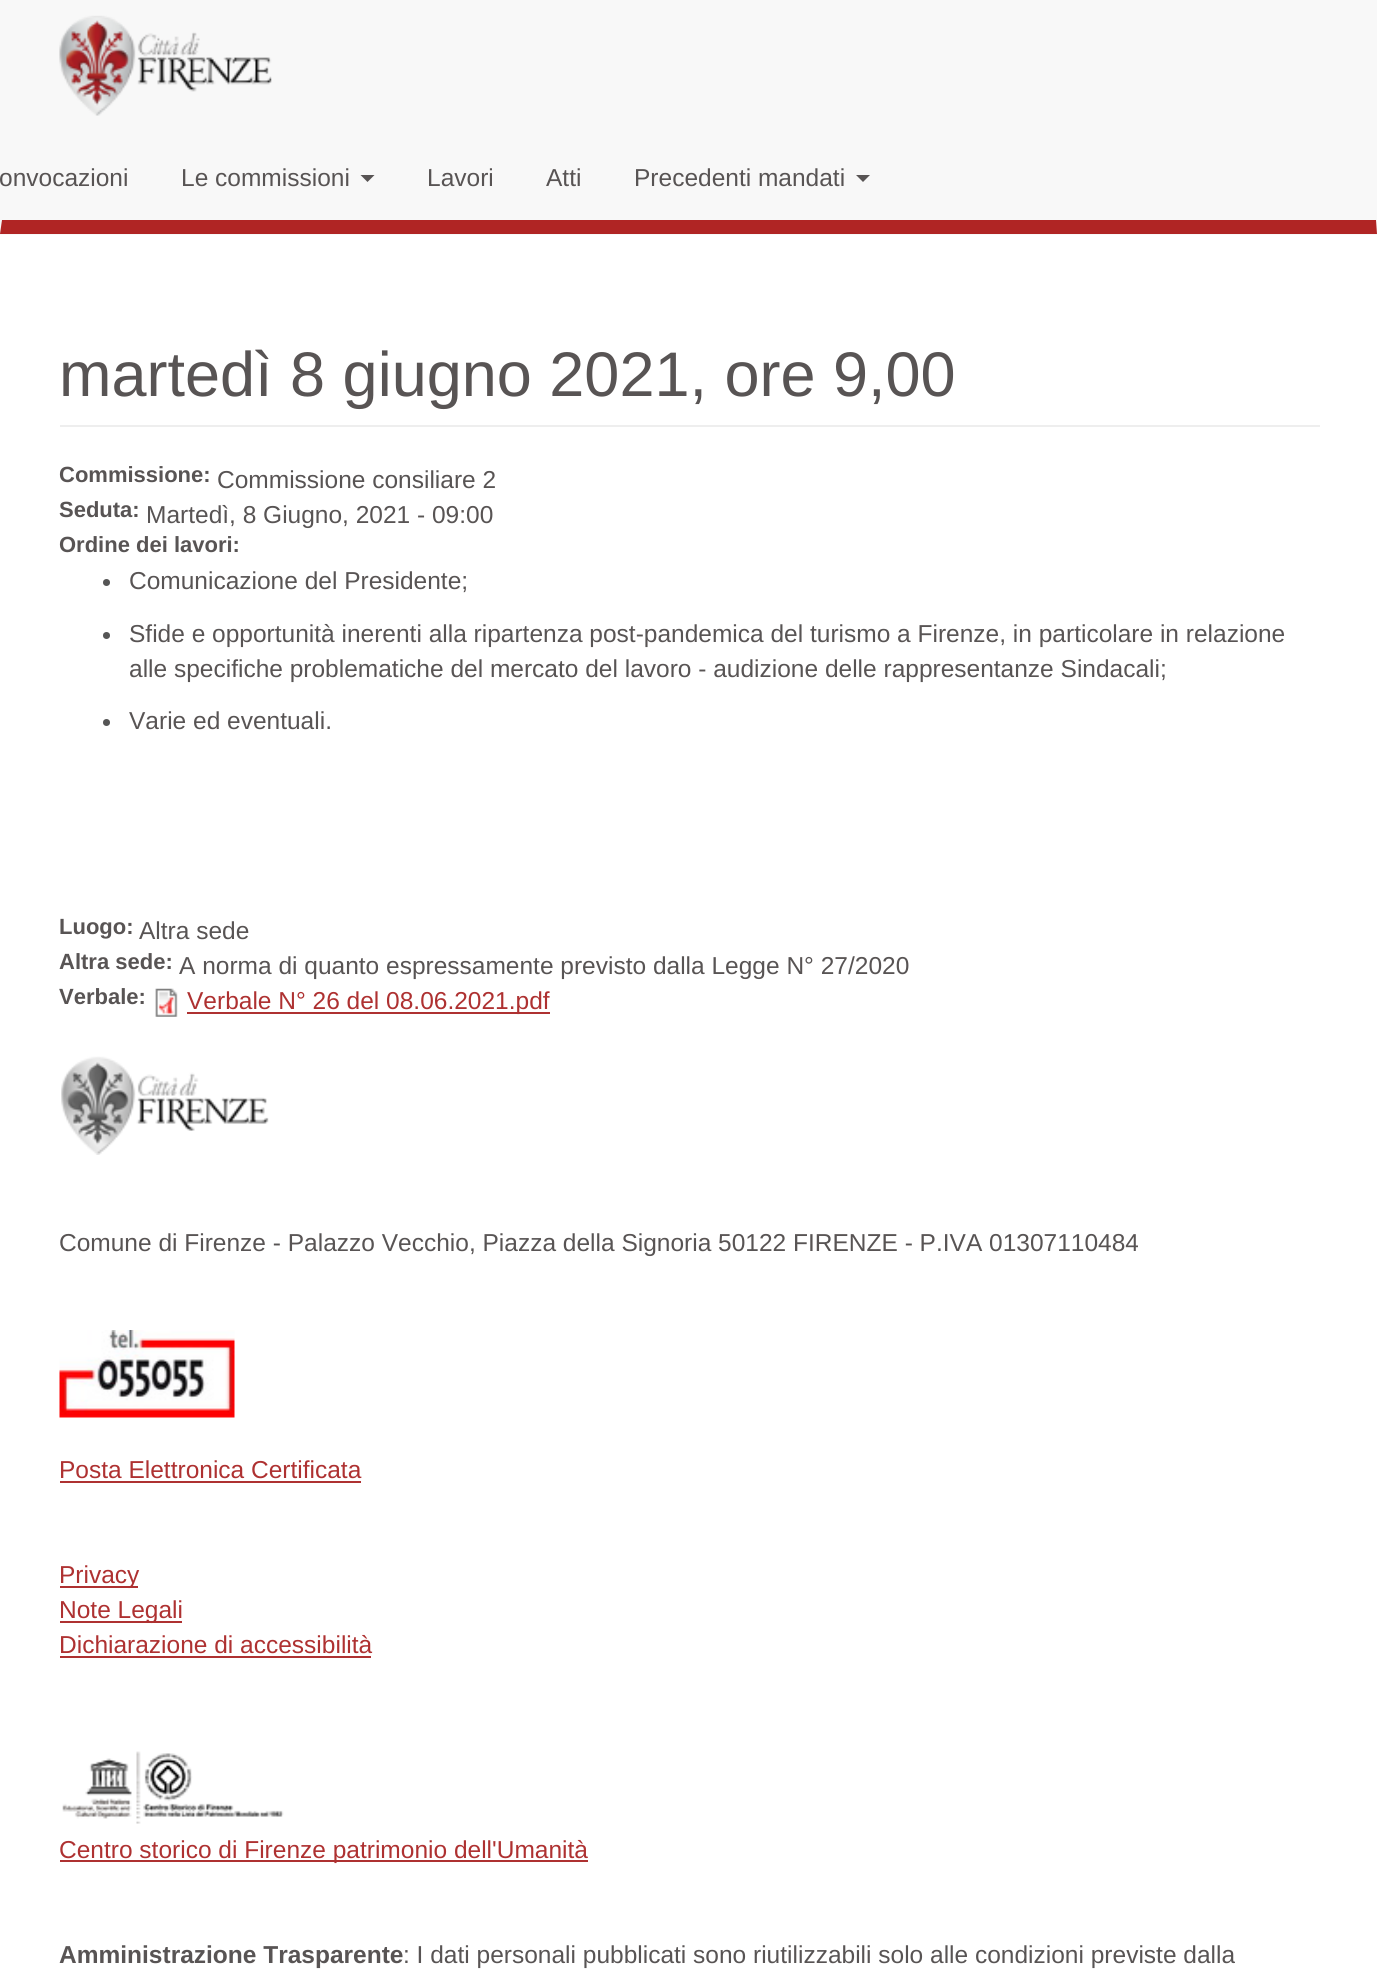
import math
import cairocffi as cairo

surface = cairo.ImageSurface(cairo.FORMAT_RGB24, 1377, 1985)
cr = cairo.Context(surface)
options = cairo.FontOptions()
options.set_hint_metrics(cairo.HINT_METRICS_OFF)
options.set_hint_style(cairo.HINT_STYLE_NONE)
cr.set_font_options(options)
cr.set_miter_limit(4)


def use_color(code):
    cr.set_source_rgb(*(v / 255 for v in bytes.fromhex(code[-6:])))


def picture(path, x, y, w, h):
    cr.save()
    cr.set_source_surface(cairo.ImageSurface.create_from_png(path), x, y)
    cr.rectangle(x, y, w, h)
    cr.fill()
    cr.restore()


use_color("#ffffff")
cr.paint()
use_color("#f8f8f8")
cr.rectangle(0, 0, 1377, 235)
cr.fill()
use_color("#b02524")
cr.new_path()
cr.move_to(1377, 234)
cr.line_to(0, 234)
cr.line_to(2, 220)
cr.line_to(1376, 220)
cr.close_path()
cr.fill()
picture("img1.png", 59, 15, 213, 101)
cr.select_font_face("Liberation Sans")
cr.set_font_size(24.5)
use_color("#585454")
cr.move_to(-1, 186)
cr.show_text("onvocazioni")
cr.move_to(181, 186)
cr.show_text("Le commissioni")
cr.new_path()
cr.move_to(360.5, 175)
cr.line_to(374.5, 175)
cr.line_to(367.5, 182)
cr.close_path()
cr.fill()
cr.move_to(427, 186)
cr.show_text("Lavori")
cr.move_to(546, 186)
cr.show_text("Atti")
cr.move_to(634, 186)
cr.show_text("Precedenti mandati")
cr.new_path()
cr.move_to(856, 175)
cr.line_to(870, 175)
cr.line_to(863, 182)
cr.close_path()
cr.fill()
use_color("#eeeeee")
cr.rectangle(60, 425, 1260, 2)
cr.fill()
cr.set_font_size(63)
use_color("#585454")
cr.move_to(59, 396)
cr.show_text("martedì 8 giugno 2021, ore 9,00")
cr.select_font_face("Liberation Sans", cairo.FONT_SLANT_NORMAL, cairo.FONT_WEIGHT_BOLD)
cr.set_font_size(22)
cr.move_to(59, 482)
cr.show_text("Commissione:")
cr.select_font_face("Liberation Sans")
cr.set_font_size(24.5)
cr.move_to(217, 488)
cr.show_text("Commissione consiliare 2")
cr.select_font_face("Liberation Sans", cairo.FONT_SLANT_NORMAL, cairo.FONT_WEIGHT_BOLD)
cr.set_font_size(22)
cr.move_to(59, 517)
cr.show_text("Seduta:")
cr.select_font_face("Liberation Sans")
cr.set_font_size(24.5)
cr.move_to(146, 523)
cr.show_text("Martedì, 8 Giugno, 2021 - 09:00")
cr.select_font_face("Liberation Sans", cairo.FONT_SLANT_NORMAL, cairo.FONT_WEIGHT_BOLD)
cr.set_font_size(22)
cr.move_to(59, 552)
cr.show_text("Ordine dei lavori:")
use_color("#555555")
cr.new_path()
cr.arc(106.5, 582.5, 3.5, 0, 2 * math.pi)
cr.fill()
cr.select_font_face("Liberation Sans")
cr.set_font_size(24.5)
use_color("#585454")
cr.move_to(129, 589)
cr.show_text("Comunicazione del Presidente;")
use_color("#555555")
cr.new_path()
cr.arc(106.5, 635.5, 3.5, 0, 2 * math.pi)
cr.fill()
use_color("#585454")
cr.move_to(129, 642)
cr.show_text("Sfide e opportunità inerenti alla ripartenza post-pandemica del turismo a Firenze, in particolare in relazione")
cr.move_to(129, 677)
cr.show_text("alle specifiche problematiche del mercato del lavoro - audizione delle rappresentanze Sindacali;")
use_color("#555555")
cr.new_path()
cr.arc(106.5, 722.5, 3.5, 0, 2 * math.pi)
cr.fill()
use_color("#585454")
cr.move_to(129, 729)
cr.show_text("Varie ed eventuali.")
cr.select_font_face("Liberation Sans", cairo.FONT_SLANT_NORMAL, cairo.FONT_WEIGHT_BOLD)
cr.set_font_size(22)
cr.move_to(59, 934)
cr.show_text("Luogo:")
cr.select_font_face("Liberation Sans")
cr.set_font_size(24.5)
cr.move_to(139, 939)
cr.show_text("Altra sede")
cr.select_font_face("Liberation Sans", cairo.FONT_SLANT_NORMAL, cairo.FONT_WEIGHT_BOLD)
cr.set_font_size(22)
cr.move_to(59, 969)
cr.show_text("Altra sede:")
cr.select_font_face("Liberation Sans")
cr.set_font_size(24.5)
cr.move_to(179, 974)
cr.show_text("A norma di quanto espressamente previsto dalla Legge N° 27/2020")
cr.select_font_face("Liberation Sans", cairo.FONT_SLANT_NORMAL, cairo.FONT_WEIGHT_BOLD)
cr.set_font_size(22)
cr.move_to(59, 1004)
cr.show_text("Verbale:")
picture("img2.png", 155, 988, 23, 29)
use_color("#ae3131")
cr.rectangle(187, 1012, 363, 2)
cr.fill()
cr.select_font_face("Liberation Sans")
cr.set_font_size(24.5)
cr.move_to(187, 1009)
cr.show_text("Verbale N° 26 del 08.06.2021.pdf")
picture("img3.png", 61, 1056, 208, 99)
use_color("#585454")
cr.move_to(59, 1251)
cr.show_text("Comune di Firenze - Palazzo Vecchio, Piazza della Signoria 50122 FIRENZE - P.IVA 01307110484")
picture("img4.png", 59, 1330, 176, 88)
use_color("#ae3131")
cr.move_to(59, 1478)
cr.show_text("Posta Elettronica Certificata")
cr.rectangle(60, 1481, 301, 2)
cr.fill()
cr.rectangle(60, 1586, 78, 2)
cr.fill()
cr.move_to(59, 1583)
cr.show_text("Privacy")
cr.rectangle(60, 1621, 122, 2)
cr.fill()
cr.move_to(59, 1618)
cr.show_text("Note Legali")
cr.move_to(59, 1653)
cr.show_text("Dichiarazione di accessibilità")
cr.rectangle(60, 1656, 311, 2)
cr.fill()
picture("img5.png", 62, 1751, 222, 73)
cr.rectangle(60, 1860, 528, 2)
cr.fill()
cr.move_to(59, 1858)
cr.show_text("Centro storico di Firenze patrimonio dell'Umanità")
cr.select_font_face("Liberation Sans", cairo.FONT_SLANT_NORMAL, cairo.FONT_WEIGHT_BOLD)
use_color("#585454")
cr.move_to(59, 1963)
cr.show_text("Amministrazione Trasparente")
cr.select_font_face("Liberation Sans")
cr.move_to(403, 1963)
cr.show_text(": I dati personali pubblicati sono riutilizzabili solo alle condizioni previste dalla")
surface.write_to_png("result.png")
